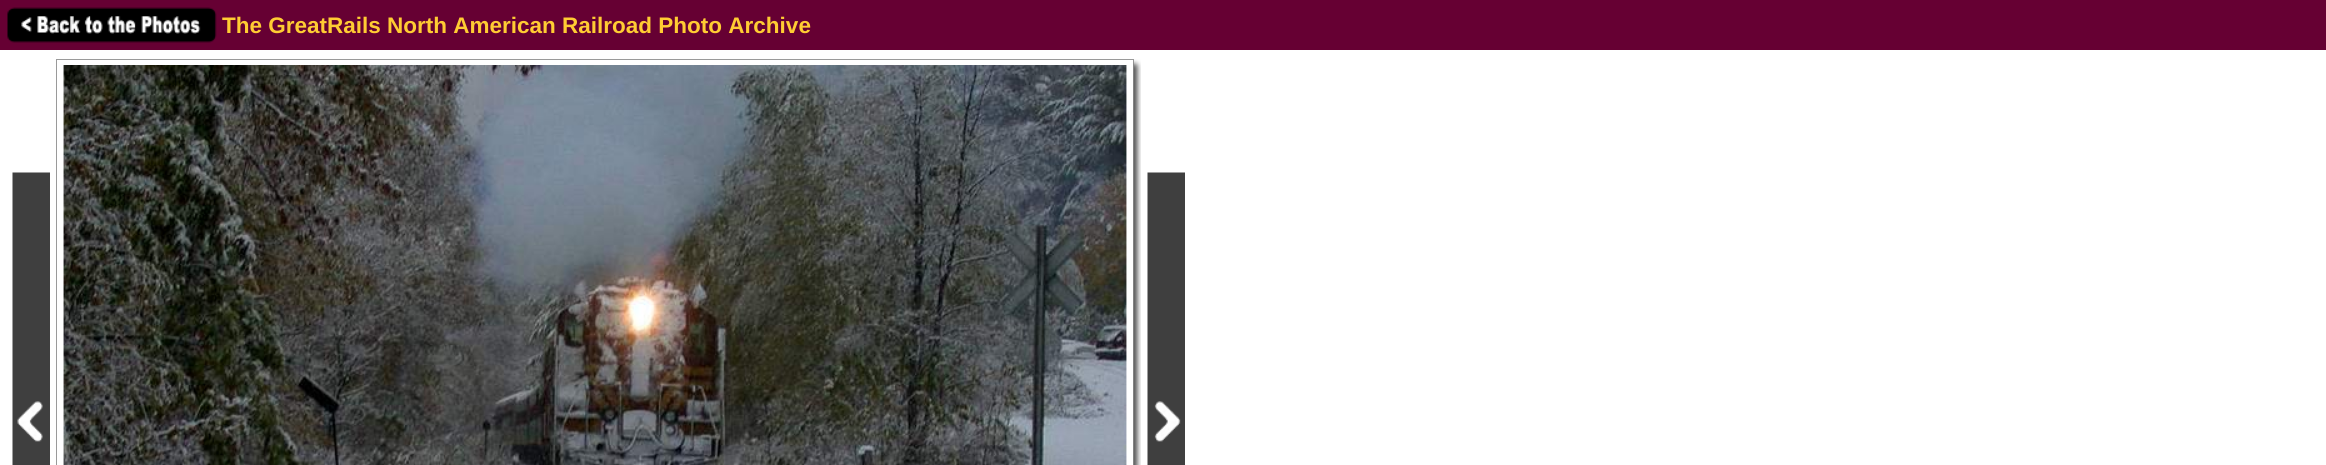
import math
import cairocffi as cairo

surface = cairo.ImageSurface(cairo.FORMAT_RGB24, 2326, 465)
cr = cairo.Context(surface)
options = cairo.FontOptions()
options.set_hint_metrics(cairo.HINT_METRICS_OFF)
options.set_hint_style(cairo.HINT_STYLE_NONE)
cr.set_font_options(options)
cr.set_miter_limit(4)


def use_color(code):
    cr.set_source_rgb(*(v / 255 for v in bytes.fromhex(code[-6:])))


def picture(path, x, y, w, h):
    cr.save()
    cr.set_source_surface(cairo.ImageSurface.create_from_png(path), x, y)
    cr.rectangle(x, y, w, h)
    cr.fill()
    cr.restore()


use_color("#ffffff")
cr.paint()
use_color("#660033")
cr.rectangle(0, 0, 2326, 50)
cr.fill()
picture("img1.png", 7, 7, 210, 36)
cr.select_font_face("Liberation Sans", cairo.FONT_SLANT_NORMAL, cairo.FONT_WEIGHT_BOLD)
cr.set_font_size(22.5)
use_color("#ffcc33")
cr.move_to(222, 33)
cr.show_text("The GreatRails North American Railroad Photo Archive")
picture("img2.png", 12, 172, 38, 293)
cr.rectangle(56.5, 59.5, 1077, 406)
use_color("#9a9a9a")
cr.set_line_width(1)
cr.stroke()
picture("img3.png", 63, 65, 1064, 400)
picture("img4.png", 63, 65, 1064, 400)
picture("img5.png", 1133, 59, 8, 406)
picture("img6.png", 1147, 172, 38, 293)
surface.write_to_png("result.png")
